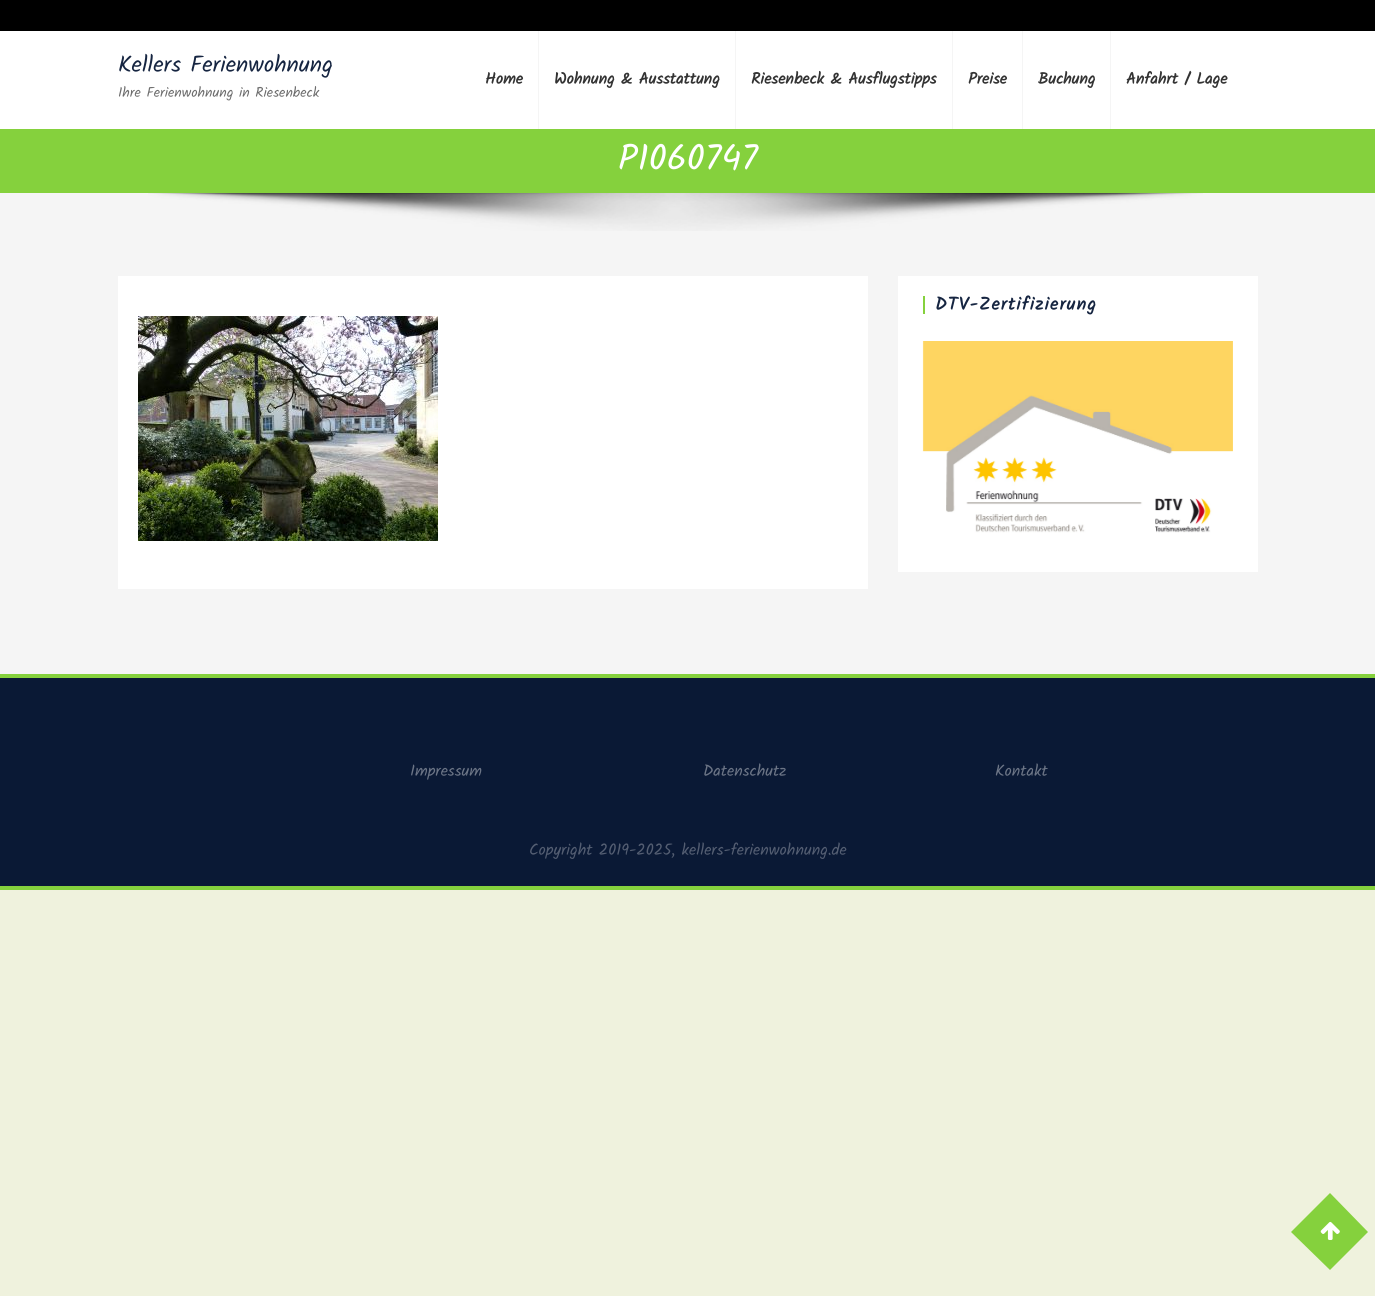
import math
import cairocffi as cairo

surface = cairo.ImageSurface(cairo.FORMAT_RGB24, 1375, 1296)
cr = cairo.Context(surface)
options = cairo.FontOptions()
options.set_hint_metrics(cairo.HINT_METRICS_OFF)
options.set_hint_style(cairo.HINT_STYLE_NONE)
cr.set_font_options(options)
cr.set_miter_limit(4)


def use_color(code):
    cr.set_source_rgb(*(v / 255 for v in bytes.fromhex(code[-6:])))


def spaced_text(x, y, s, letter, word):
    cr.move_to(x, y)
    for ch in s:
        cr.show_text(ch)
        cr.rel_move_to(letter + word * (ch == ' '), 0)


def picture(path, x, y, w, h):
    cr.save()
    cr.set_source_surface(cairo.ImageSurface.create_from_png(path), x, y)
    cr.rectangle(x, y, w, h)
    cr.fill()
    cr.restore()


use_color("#eff2dd")
cr.paint()
use_color("#f5f5f5")
cr.rectangle(0, 193, 1375, 481)
cr.fill()
use_color("#000000")
cr.rectangle(0, 0, 1375, 31)
cr.fill()
use_color("#ffffff")
cr.rectangle(0, 31, 1375, 98)
cr.fill()
cr.select_font_face("Kalam")
cr.set_font_size(23)
use_color("#162541")
cr.move_to(118, 72)
cr.show_text("Kellers Ferienwohnung")
cr.set_font_size(14)
use_color("#6d6d6d")
cr.move_to(118, 97)
cr.show_text("Ihre Ferienwohnung in Riesenbeck")
use_color("#f5f5f5")
cr.rectangle(538, 31, 1, 98)
cr.fill()
cr.select_font_face("Kalam", cairo.FONT_SLANT_NORMAL, cairo.FONT_WEIGHT_BOLD)
cr.set_font_size(16)
use_color("#333333")
cr.move_to(485, 84)
cr.show_text("Home")
use_color("#f5f5f5")
cr.rectangle(735, 31, 1, 98)
cr.fill()
use_color("#333333")
cr.move_to(554, 84)
cr.show_text("Wohnung & Ausstattung")
use_color("#f5f5f5")
cr.rectangle(952, 31, 1, 98)
cr.fill()
use_color("#333333")
cr.move_to(751, 84)
cr.show_text("Riesenbeck & Ausflugstipps")
use_color("#f5f5f5")
cr.rectangle(1022, 31, 1, 98)
cr.fill()
use_color("#333333")
cr.move_to(968, 84)
cr.show_text("Preise")
use_color("#f5f5f5")
cr.rectangle(1110, 31, 1, 98)
cr.fill()
use_color("#333333")
cr.move_to(1038, 84)
cr.show_text("Buchung")
cr.move_to(1126, 84)
cr.show_text("Anfahrt / Lage")
use_color("#85d13d")
cr.rectangle(0, 129, 1375, 64)
cr.fill()
cr.select_font_face("Kalam")
cr.set_font_size(36)
use_color("#ffffff")
cr.move_to(618, 170)
cr.show_text("P1060747")
picture("img1.png", 148, 193, 1055, 38)
cr.rectangle(118, 276, 750, 313)
cr.fill()
picture("img2.png", 138, 316, 300, 225)
cr.rectangle(898, 276, 360, 296)
cr.fill()
use_color("#85d13d")
cr.rectangle(923, 296, 2, 18)
cr.fill()
cr.select_font_face("Kalam", cairo.FONT_SLANT_NORMAL, cairo.FONT_WEIGHT_BOLD)
cr.set_font_size(18)
use_color("#162541")
spaced_text(935, 310, "DTV-Zertifizierung", 1.25, 0)
picture("img3.png", 922, 341, 311, 192)
use_color("#0a1935")
cr.rectangle(0, 678, 1375, 208)
cr.fill()
use_color("#85d13d")
cr.rectangle(0, 674, 1375, 4)
cr.fill()
cr.rectangle(0, 886, 1375, 4)
cr.fill()
cr.select_font_face("Kalam")
cr.set_font_size(16)
use_color("#6c7586")
cr.move_to(410, 776)
cr.show_text("Impressum")
cr.move_to(703, 776)
cr.show_text("Datenschutz")
cr.move_to(995, 776)
cr.show_text("Kontakt")
use_color("#545e72")
cr.move_to(529, 855)
cr.show_text("Copyright 2019-2025, kellers-ferienwohnung.de")
use_color("#85d13d")
cr.new_path()
cr.move_to(1330, 1193)
cr.line_to(1368, 1232)
cr.line_to(1330, 1270)
cr.line_to(1291, 1232)
cr.close_path()
cr.fill()
picture("img4.png", 1320, 1221, 20, 19)
surface.write_to_png("result.png")
